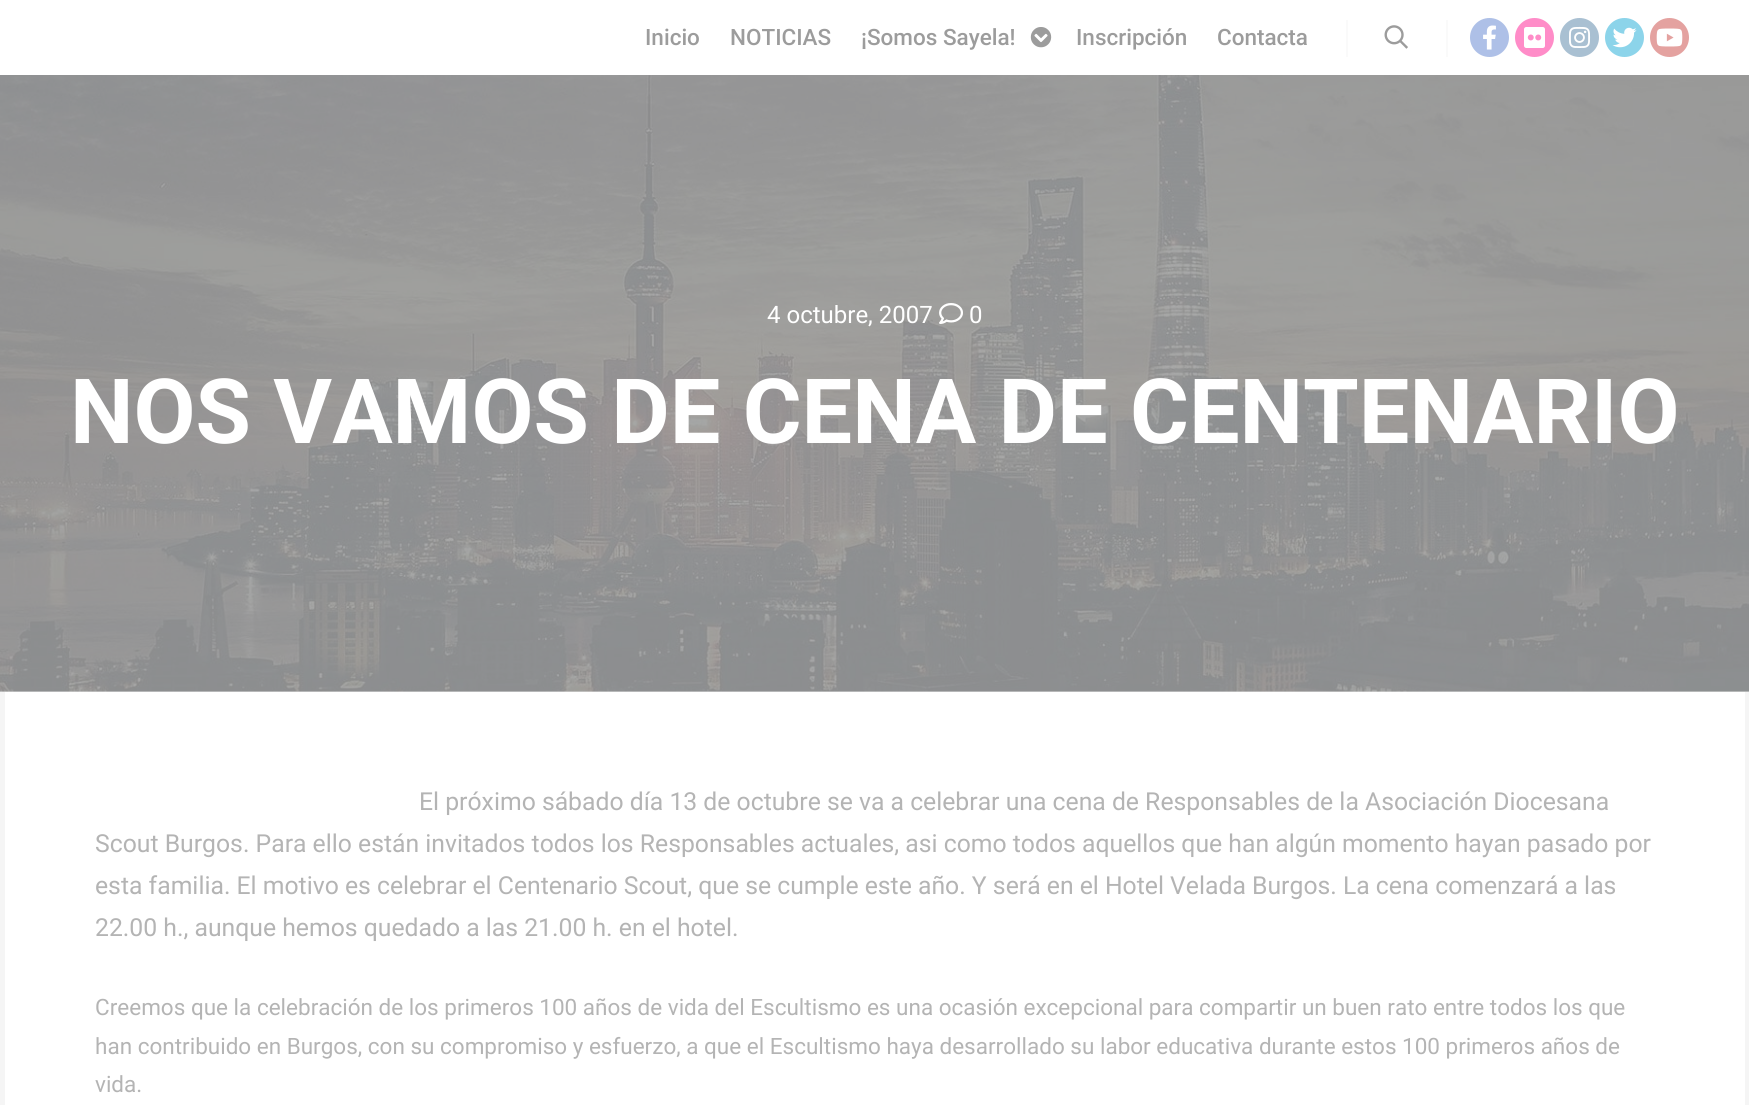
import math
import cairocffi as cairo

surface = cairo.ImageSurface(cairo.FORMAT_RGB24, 1749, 1105)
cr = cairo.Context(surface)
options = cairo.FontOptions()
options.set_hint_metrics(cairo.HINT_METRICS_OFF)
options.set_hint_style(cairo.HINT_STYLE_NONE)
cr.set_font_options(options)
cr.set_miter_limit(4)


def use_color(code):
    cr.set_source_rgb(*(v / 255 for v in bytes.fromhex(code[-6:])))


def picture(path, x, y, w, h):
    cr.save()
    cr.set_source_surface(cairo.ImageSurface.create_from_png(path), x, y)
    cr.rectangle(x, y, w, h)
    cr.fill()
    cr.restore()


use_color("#f5f5f5")
cr.paint()
use_color("#e0e0e0")
cr.rectangle(0, 691, 1749, 1)
cr.fill()
use_color("#ffffff")
cr.rectangle(0, 0, 1749, 75)
cr.fill()
cr.select_font_face("Roboto Medium")
cr.set_font_size(22.5)
use_color("#9c9c9c")
cr.move_to(645, 45)
cr.show_text("Inicio")
cr.move_to(730, 45)
cr.show_text("NOTICIAS")
cr.move_to(861, 45)
cr.show_text("¡Somos Sayela!")
picture("img1.png", 1030, 27, 22, 21)
cr.move_to(1076, 45)
cr.show_text("Inscripción")
cr.move_to(1217, 45)
cr.show_text("Contacta")
use_color("#fafafa")
cr.rectangle(1346, 20, 2, 37)
cr.fill()
picture("img2.png", 1384, 25, 24, 24)
cr.rectangle(1446, 20, 2, 37)
cr.fill()
use_color("#aec0e7")
cr.arc(1489.5, 37.5, 19.5, 0, 2 * math.pi)
cr.fill()
picture("img3.png", 1483, 25, 13, 25)
use_color("#ff8cc8")
cr.arc(1534.5, 37.5, 19.5, 0, 2 * math.pi)
cr.fill()
picture("img4.png", 1524, 27, 21, 21)
use_color("#a9c0d2")
cr.arc(1579.5, 37.5, 19.5, 0, 2 * math.pi)
cr.fill()
picture("img5.png", 1569, 26, 22, 22)
use_color("#8cd4ea")
cr.arc(1624.5, 37.5, 19.5, 0, 2 * math.pi)
cr.fill()
picture("img6.png", 1612, 27, 25, 21)
use_color("#e4a2a0")
cr.arc(1669.5, 37.5, 19.5, 0, 2 * math.pi)
cr.fill()
picture("img7.png", 1656, 28, 27, 19)
picture("img8.png", 0, 75, 1749, 617)
cr.select_font_face("Roboto")
cr.set_font_size(24)
use_color("#ffffff")
cr.move_to(767, 323)
cr.show_text("4 octubre, 2007")
picture("img9.png", 939, 303, 24, 21)
cr.move_to(969, 323)
cr.show_text("0")
cr.select_font_face("Roboto", cairo.FONT_SLANT_NORMAL, cairo.FONT_WEIGHT_BOLD)
cr.set_font_size(90)
cr.move_to(70, 443)
cr.show_text("NOS VAMOS DE CENA DE CENTENARIO")
cr.rectangle(5, 692, 1740, 413)
cr.fill()
cr.select_font_face("Roboto")
cr.set_font_size(24.75)
use_color("#b4b4b4")
cr.move_to(419, 810)
cr.show_text("El próximo sábado día 13 de octubre se va a celebrar una cena de Responsables de la Asociación Diocesana")
cr.move_to(95, 852)
cr.show_text("Scout Burgos. Para ello están invitados todos los Responsables actuales, asi como todos aquellos que han algún momento hayan pasado por")
cr.move_to(95, 894)
cr.show_text("esta familia. El motivo es celebrar el Centenario Scout, que se cumple este año. Y será en el Hotel Velada Burgos. La cena comenzará a las")
cr.move_to(95, 936)
cr.show_text("22.00 h., aunque hemos quedado a las 21.00 h. en el hotel.")
cr.set_font_size(22.5)
cr.move_to(95, 1015)
cr.show_text("Creemos que la celebración de los primeros 100 años de vida del Escultismo es una ocasión excepcional para compartir un buen rato entre todos los que")
cr.move_to(95, 1054)
cr.show_text("han contribuido en Burgos, con su compromiso y esfuerzo, a que el Escultismo haya desarrollado su labor educativa durante estos 100 primeros años de")
cr.move_to(95, 1092)
cr.show_text("vida.")
surface.write_to_png("result.png")
